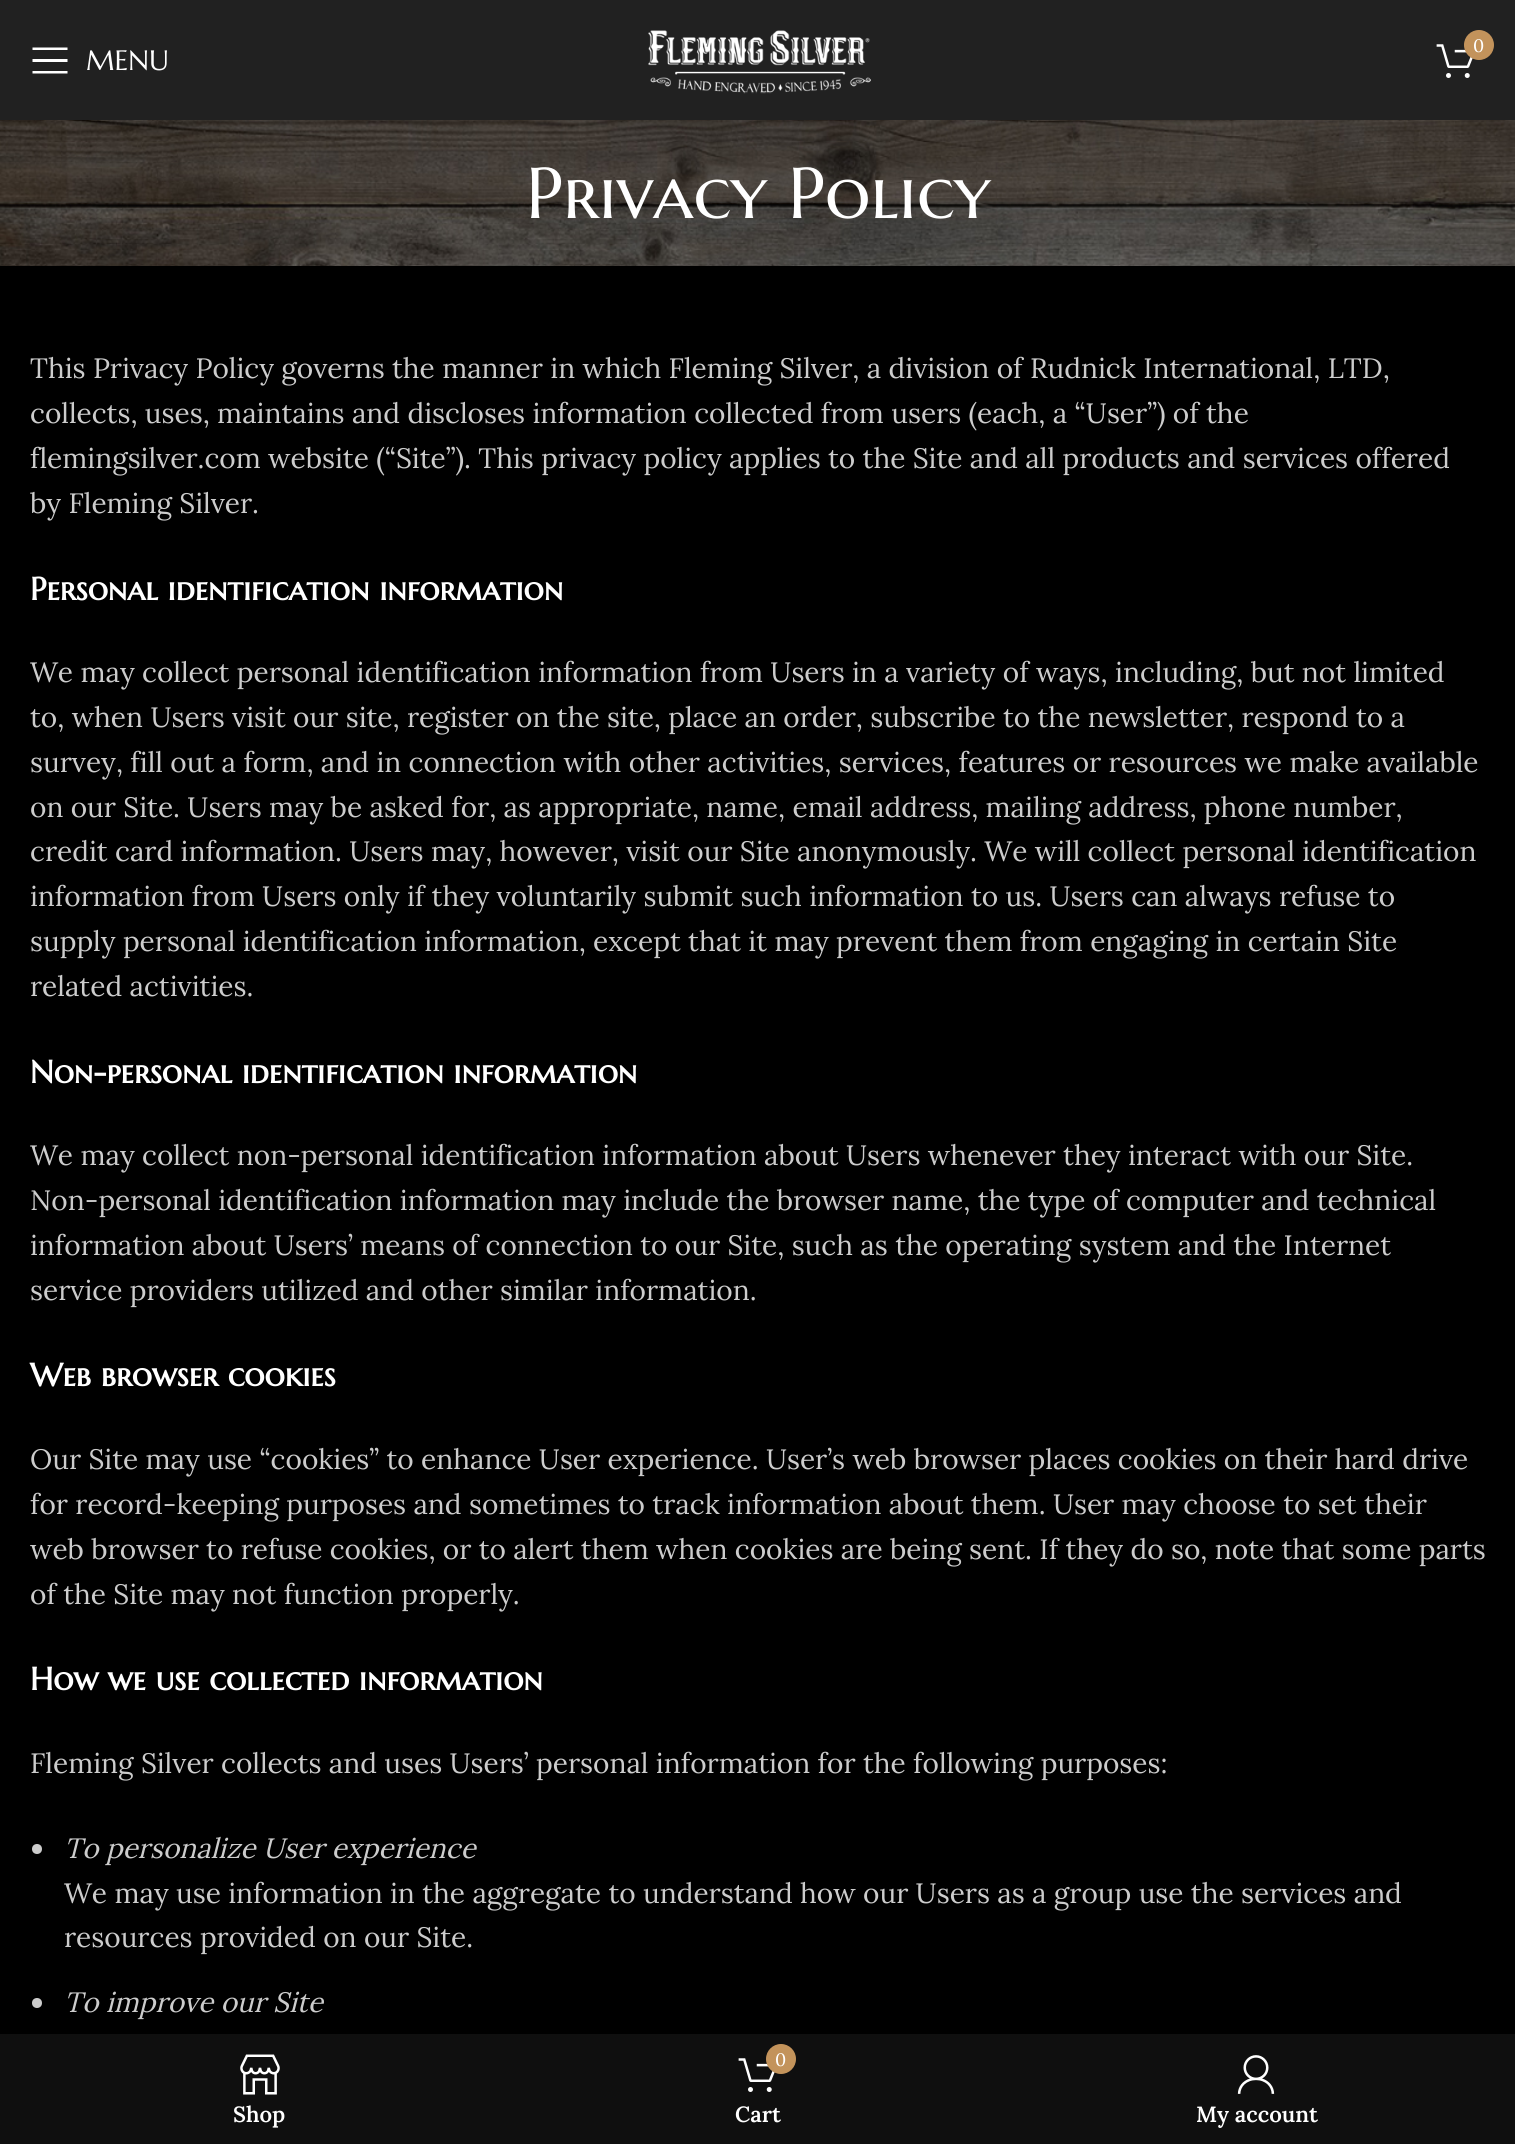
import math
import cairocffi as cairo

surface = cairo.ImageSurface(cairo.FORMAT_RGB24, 1515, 2144)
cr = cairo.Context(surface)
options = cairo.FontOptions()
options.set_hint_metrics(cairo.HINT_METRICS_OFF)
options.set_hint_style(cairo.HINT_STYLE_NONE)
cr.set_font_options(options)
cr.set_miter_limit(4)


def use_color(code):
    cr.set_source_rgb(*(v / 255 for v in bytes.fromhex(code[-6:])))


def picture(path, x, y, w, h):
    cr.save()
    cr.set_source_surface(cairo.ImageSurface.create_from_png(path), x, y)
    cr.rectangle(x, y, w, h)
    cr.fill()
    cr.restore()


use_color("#000000")
cr.paint()
use_color("#212121")
cr.rectangle(0, 0, 1515, 120)
cr.fill()
picture("img1.png", 648, 30, 223, 64)
picture("img2.png", 1436, 44, 37, 34)
use_color("#c3935b")
cr.arc(1479, 45, 15, 0, 2 * math.pi)
cr.fill()
cr.select_font_face("Lora")
cr.set_font_size(18)
use_color("#ffffff")
cr.move_to(1473, 52)
cr.show_text("0")
cr.new_path()
cr.move_to(32.5, 50)
cr.line_to(67.5, 50)
cr.line_to(67.5, 47.5)
cr.line_to(32.5, 47.5)
cr.close_path()
cr.move_to(32.5, 62)
cr.line_to(67.5, 62)
cr.line_to(67.5, 59)
cr.line_to(32.5, 59)
cr.close_path()
cr.move_to(32.5, 73.5)
cr.line_to(67.5, 73.5)
cr.line_to(67.5, 71)
cr.line_to(32.5, 71)
cr.close_path()
cr.fill()
cr.select_font_face("Marcellus SC")
cr.set_font_size(28)
cr.move_to(86, 70)
cr.show_text("MENU")
picture("img3.png", 0, 120, 1515, 146)
cr.set_font_size(72)
cr.move_to(526, 218)
cr.show_text("Privacy Policy")
cr.select_font_face("Lora")
cr.set_font_size(28)
use_color("#cccccc")
cr.move_to(30, 378)
cr.show_text("This Privacy Policy governs the manner in which Fleming Silver, a division of Rudnick International, LTD,")
cr.move_to(30, 423)
cr.show_text("collects, uses, maintains and discloses information collected from users (each, a “User”) of the")
cr.move_to(30, 468)
cr.show_text("flemingsilver.com website (“Site”). This privacy policy applies to the Site and all products and services offered")
cr.move_to(30, 513)
cr.show_text("by Fleming Silver.")
cr.select_font_face("Marcellus SC", cairo.FONT_SLANT_NORMAL, cairo.FONT_WEIGHT_BOLD)
cr.set_font_size(32)
use_color("#ffffff")
cr.move_to(30, 600)
cr.show_text("Personal identification information")
cr.select_font_face("Lora")
cr.set_font_size(28)
use_color("#cccccc")
cr.move_to(30, 682)
cr.show_text("We may collect personal identification information from Users in a variety of ways, including, but not limited")
cr.move_to(30, 727)
cr.show_text("to, when Users visit our site, register on the site, place an order, subscribe to the newsletter, respond to a")
cr.move_to(30, 772)
cr.show_text("survey, fill out a form, and in connection with other activities, services, features or resources we make available")
cr.move_to(30, 817)
cr.show_text("on our Site. Users may be asked for, as appropriate, name, email address, mailing address, phone number,")
cr.move_to(30, 861)
cr.show_text("credit card information. Users may, however, visit our Site anonymously. We will collect personal identification")
cr.move_to(30, 906)
cr.show_text("information from Users only if they voluntarily submit such information to us. Users can always refuse to")
cr.move_to(30, 951)
cr.show_text("supply personal identification information, except that it may prevent them from engaging in certain Site")
cr.move_to(30, 996)
cr.show_text("related activities.")
cr.select_font_face("Marcellus SC", cairo.FONT_SLANT_NORMAL, cairo.FONT_WEIGHT_BOLD)
cr.set_font_size(32)
use_color("#ffffff")
cr.move_to(30, 1083)
cr.show_text("Non-personal identification information")
cr.select_font_face("Lora")
cr.set_font_size(28)
use_color("#cccccc")
cr.move_to(30, 1165)
cr.show_text("We may collect non-personal identification information about Users whenever they interact with our Site.")
cr.move_to(30, 1210)
cr.show_text("Non-personal identification information may include the browser name, the type of computer and technical")
cr.move_to(30, 1255)
cr.show_text("information about Users’ means of connection to our Site, such as the operating system and the Internet")
cr.move_to(30, 1300)
cr.show_text("service providers utilized and other similar information.")
cr.select_font_face("Marcellus SC", cairo.FONT_SLANT_NORMAL, cairo.FONT_WEIGHT_BOLD)
cr.set_font_size(32)
use_color("#ffffff")
cr.move_to(30, 1386)
cr.show_text("Web browser cookies")
cr.select_font_face("Lora")
cr.set_font_size(28)
use_color("#cccccc")
cr.move_to(30, 1469)
cr.show_text("Our Site may use “cookies” to enhance User experience. User’s web browser places cookies on their hard drive")
cr.move_to(30, 1514)
cr.show_text("for record-keeping purposes and sometimes to track information about them. User may choose to set their")
cr.move_to(30, 1559)
cr.show_text("web browser to refuse cookies, or to alert them when cookies are being sent. If they do so, note that some parts")
cr.move_to(30, 1604)
cr.show_text("of the Site may not function properly.")
cr.select_font_face("Marcellus SC", cairo.FONT_SLANT_NORMAL, cairo.FONT_WEIGHT_BOLD)
cr.set_font_size(32)
use_color("#ffffff")
cr.move_to(30, 1690)
cr.show_text("How we use collected information")
cr.select_font_face("Lora")
cr.set_font_size(28)
use_color("#cccccc")
cr.move_to(30, 1773)
cr.show_text("Fleming Silver collects and uses Users’ personal information for the following purposes:")
cr.new_path()
cr.arc(37, 1849, 5, 0, 2 * math.pi)
cr.fill()
cr.select_font_face("Lora", cairo.FONT_SLANT_ITALIC)
cr.move_to(64, 1858)
cr.show_text("To personalize User experience")
cr.select_font_face("Lora")
cr.move_to(64, 1903)
cr.show_text("We may use information in the aggregate to understand how our Users as a group use the services and")
cr.move_to(64, 1947)
cr.show_text("resources provided on our Site.")
cr.new_path()
cr.arc(37, 2003, 5, 0, 2 * math.pi)
cr.fill()
cr.select_font_face("Lora", cairo.FONT_SLANT_ITALIC)
cr.move_to(64, 2012)
cr.show_text("To improve our Site")
use_color("#0f0f0f")
cr.rectangle(0, 2034, 1515, 110)
cr.fill()
picture("img4.png", 240, 2054, 40, 41)
cr.select_font_face("Lora SemiBold")
cr.set_font_size(22)
use_color("#ffffff")
cr.move_to(233, 2122)
cr.show_text("Shop")
picture("img5.png", 738, 2058, 37, 34)
use_color("#c3935b")
cr.arc(781, 2059, 15, 0, 2 * math.pi)
cr.fill()
cr.select_font_face("Lora")
cr.set_font_size(18)
use_color("#ffffff")
cr.move_to(775, 2066)
cr.show_text("0")
cr.select_font_face("Lora SemiBold")
cr.set_font_size(22)
cr.move_to(735, 2122)
cr.show_text("Cart")
picture("img6.png", 1237, 2055, 38, 39)
cr.move_to(1196, 2122)
cr.show_text("My account")
surface.write_to_png("result.png")
